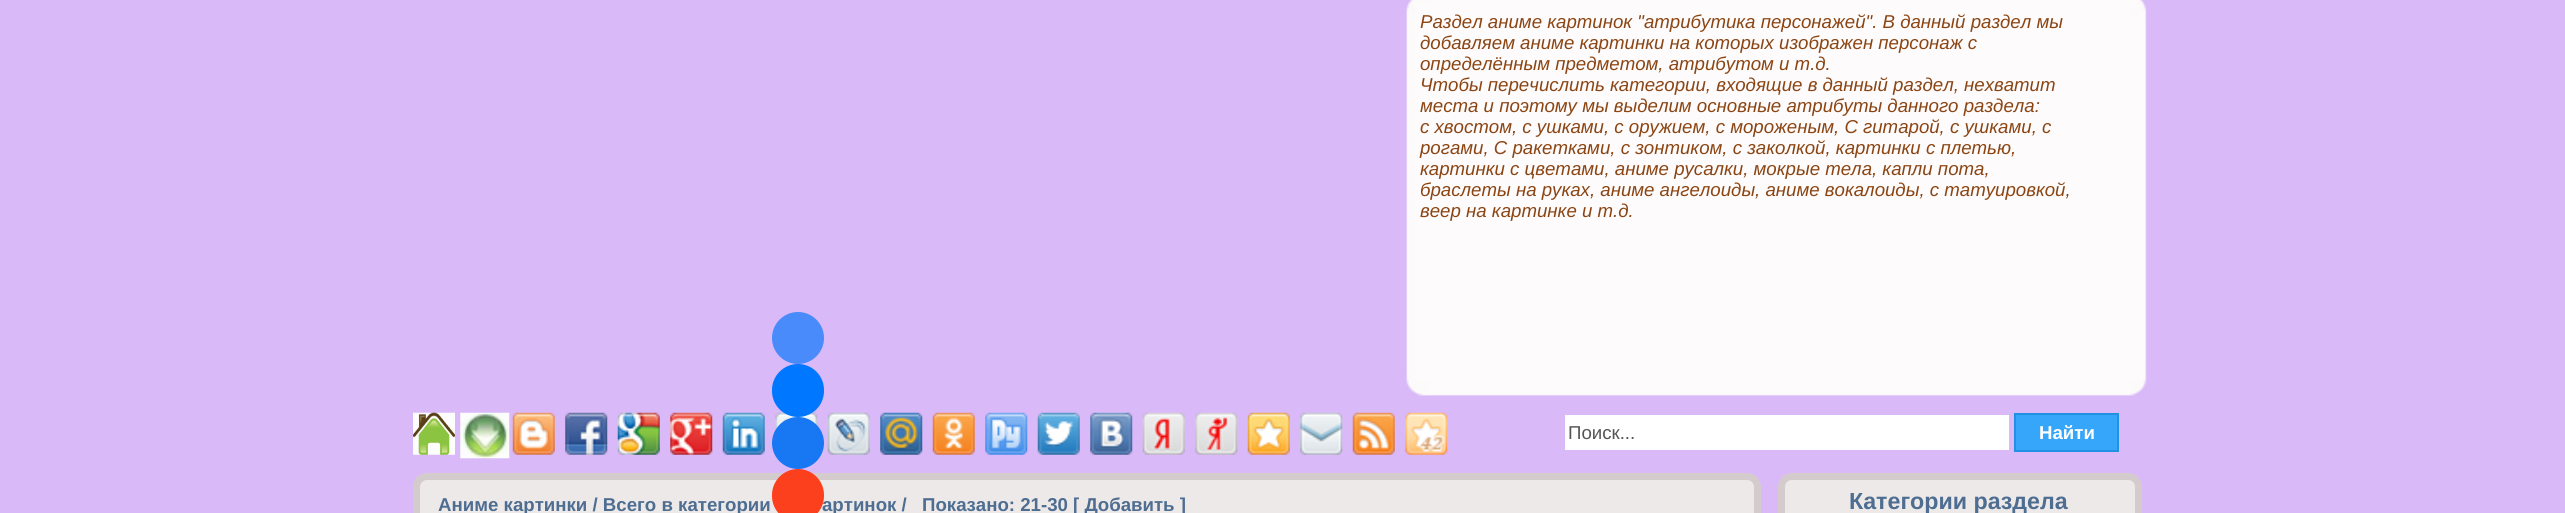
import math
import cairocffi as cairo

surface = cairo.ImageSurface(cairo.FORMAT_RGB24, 2565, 513)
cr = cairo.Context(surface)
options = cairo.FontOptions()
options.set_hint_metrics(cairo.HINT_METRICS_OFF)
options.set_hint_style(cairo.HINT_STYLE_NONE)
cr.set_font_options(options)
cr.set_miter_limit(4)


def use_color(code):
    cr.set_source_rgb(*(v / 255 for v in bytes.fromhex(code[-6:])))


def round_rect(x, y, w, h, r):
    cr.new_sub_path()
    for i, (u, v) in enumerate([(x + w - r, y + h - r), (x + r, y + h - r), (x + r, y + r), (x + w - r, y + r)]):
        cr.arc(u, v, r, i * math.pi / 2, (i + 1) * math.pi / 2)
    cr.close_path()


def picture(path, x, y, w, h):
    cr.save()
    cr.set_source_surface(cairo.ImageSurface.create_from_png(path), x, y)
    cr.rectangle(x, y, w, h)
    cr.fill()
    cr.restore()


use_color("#dab9f8")
cr.paint()
picture("img1.png", 1406, 0, 741, 396)
cr.select_font_face("Liberation Sans", cairo.FONT_SLANT_ITALIC)
cr.set_font_size(18.65)
use_color("#8b4513")
cr.move_to(1420, 28)
cr.show_text("Раздел аниме картинок \"атрибутика персонажей\". В данный раздел мы")
cr.move_to(1420, 49)
cr.show_text("добавляем аниме картинки на которых изображен персонаж с")
cr.move_to(1420, 70)
cr.show_text("определённым предметом, атрибутом и т.д.")
cr.move_to(1420, 91)
cr.show_text("Чтобы перечислить категории, входящие в данный раздел, нехватит")
cr.move_to(1420, 112)
cr.show_text("места и поэтому мы выделим основные атрибуты данного раздела:")
cr.move_to(1420, 133)
cr.show_text("с хвостом, с ушками, с оружием, с мороженым, С гитарой, с ушками, с")
cr.move_to(1420, 154)
cr.show_text("рогами, С ракетками, с зонтиком, с заколкой, картинки с плетью,")
cr.move_to(1420, 175)
cr.show_text("картинки с цветами, аниме русалки, мокрые тела, капли пота,")
cr.move_to(1420, 196)
cr.show_text("браслеты на руках, аниме ангелоиды, аниме вокалоиды, с татуировкой,")
cr.move_to(1420, 217)
cr.show_text("веер на картинке и т.д.")
use_color("#498bfa")
cr.new_path()
cr.arc(798, 338, 26, 0, 2 * math.pi)
cr.fill()
picture("img9.png", 775, 412, 43, 19)
use_color("#0077ff")
round_rect(772, 364, 52, 53, 26)
cr.fill()
use_color("#1877f2")
cr.arc(798, 443, 26, 0, 2 * math.pi)
cr.fill()
use_color("#eee9e9")
round_rect(416.5, 476.5, 1341, 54, 10.5)
cr.fill_preserve()
use_color("#d4cccc")
cr.set_line_width(7)
cr.stroke()
cr.select_font_face("Liberation Sans", cairo.FONT_SLANT_NORMAL, cairo.FONT_WEIGHT_BOLD)
use_color("#4d6d91")
cr.move_to(822, 511)
cr.show_text("артинок /")
use_color("#fc3f1d")
round_rect(772, 469, 52, 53, 26)
cr.fill()
picture("img2.png", 413, 412, 42, 43)
picture("img3.png", 460, 412, 50, 47)
picture("img4.png", 512, 412, 43, 43)
picture("img5.png", 565, 412, 43, 43)
picture("img6.png", 617, 412, 43, 43)
picture("img7.png", 670, 412, 43, 43)
picture("img8.png", 722, 412, 43, 43)
picture("img10.png", 827, 412, 43, 43)
picture("img11.png", 880, 412, 43, 43)
picture("img12.png", 932, 412, 43, 43)
picture("img13.png", 985, 412, 43, 43)
picture("img14.png", 1037, 412, 43, 43)
picture("img15.png", 1090, 412, 43, 43)
picture("img16.png", 1142, 412, 43, 43)
picture("img17.png", 1195, 412, 43, 43)
picture("img18.png", 1247, 412, 43, 43)
picture("img19.png", 1300, 412, 43, 43)
picture("img20.png", 1352, 412, 43, 43)
picture("img21.png", 1405, 412, 43, 43)
use_color("#ffffff")
cr.rectangle(1565, 415, 444, 35)
cr.fill()
cr.select_font_face("Liberation Sans")
use_color("#555555")
cr.move_to(1568, 439)
cr.show_text("Поиск...")
use_color("#36a6fa")
cr.rectangle(2015, 414, 103, 37)
cr.fill_preserve()
use_color("#2290e3")
cr.set_line_width(2)
cr.stroke()
cr.select_font_face("Liberation Sans", cairo.FONT_SLANT_NORMAL, cairo.FONT_WEIGHT_BOLD)
use_color("#ffffff")
cr.move_to(2039, 439)
cr.show_text("Найти")
use_color("#4d6d91")
cr.move_to(438, 511)
cr.show_text("Аниме картинки / Всего в категории")
cr.move_to(922, 511)
cr.show_text("Показано: 21-30 [ Добавить ]")
use_color("#eee9e9")
round_rect(1781.5, 476.5, 357, 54, 10.5)
cr.fill_preserve()
use_color("#d4cccc")
cr.set_line_width(7)
cr.stroke()
cr.set_font_size(23.25)
use_color("#4d6d91")
cr.move_to(1849, 509)
cr.show_text("Категории раздела")
surface.write_to_png("result.png")
